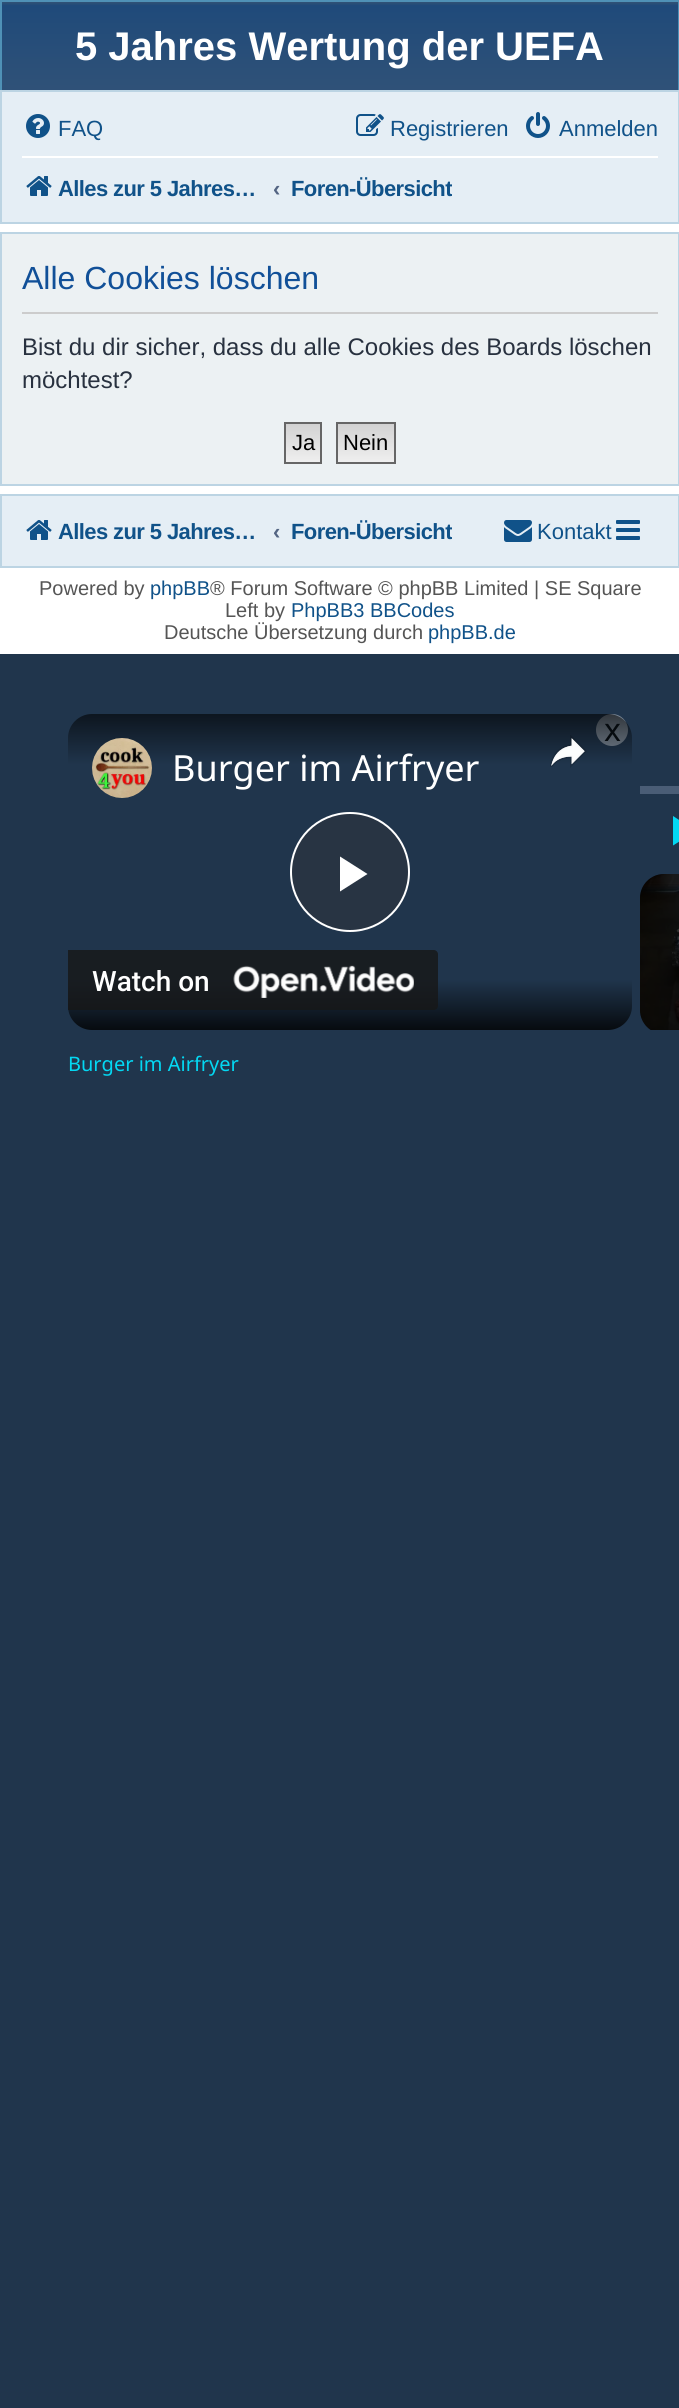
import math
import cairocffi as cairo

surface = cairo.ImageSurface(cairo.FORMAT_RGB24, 679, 2408)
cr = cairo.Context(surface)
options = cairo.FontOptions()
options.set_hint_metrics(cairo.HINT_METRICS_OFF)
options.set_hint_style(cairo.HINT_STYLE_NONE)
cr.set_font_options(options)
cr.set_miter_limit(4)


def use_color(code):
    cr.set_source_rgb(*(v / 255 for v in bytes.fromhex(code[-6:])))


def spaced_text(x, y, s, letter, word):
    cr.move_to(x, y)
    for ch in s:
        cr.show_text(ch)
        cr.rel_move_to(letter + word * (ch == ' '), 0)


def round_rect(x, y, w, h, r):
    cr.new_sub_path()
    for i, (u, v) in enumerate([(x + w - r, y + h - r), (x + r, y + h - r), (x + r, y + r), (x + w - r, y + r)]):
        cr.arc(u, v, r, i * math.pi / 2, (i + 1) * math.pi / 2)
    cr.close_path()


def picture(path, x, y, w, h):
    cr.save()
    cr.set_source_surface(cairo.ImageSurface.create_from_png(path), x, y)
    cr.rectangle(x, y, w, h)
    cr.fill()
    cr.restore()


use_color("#20354c")
cr.paint()
use_color("#ffffff")
cr.rectangle(0, 224, 679, 430)
cr.fill()
gradient = cairo.LinearGradient(340, 2, 340, 186)
gradient.add_color_stop_rgba(0, 0.192, 0.322, 0.459, 1)
gradient.add_color_stop_rgba(0.02, 0.122, 0.29, 0.478, 1)
gradient.add_color_stop_rgba(1, 0.259, 0.353, 0.459, 1)
gradient.add_color_stop_rgba(1, 0.11, 0.18, 0.263, 1)
cr.set_source(gradient)
cr.rectangle(2, 2, 676, 88)
cr.fill()
cr.rectangle(1, 1, 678, 90)
use_color("#4f91b6")
cr.stroke()
cr.select_font_face("Liberation Sans", cairo.FONT_SLANT_NORMAL, cairo.FONT_WEIGHT_BOLD)
cr.set_font_size(40)
use_color("#ffffff")
cr.move_to(75, 60)
cr.show_text("5 Jahres Wertung der UEFA")
use_color("#e5eef5")
cr.rectangle(1, 91, 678, 132)
cr.fill_preserve()
use_color("#bcd4e3")
cr.stroke()
picture("img1.png", 26, 114, 24, 24)
cr.select_font_face("Liberation Sans")
cr.set_font_size(22)
use_color("#105289")
cr.move_to(58, 136)
cr.show_text("FAQ")
picture("img2.png", 356, 114, 28, 22)
cr.move_to(390, 136)
cr.show_text("Registrieren")
picture("img3.png", 526, 112, 24, 26)
cr.move_to(559, 136)
cr.show_text("Anmelden")
use_color("#ffffff")
cr.rectangle(22, 156, 636, 2)
cr.fill()
picture("img4.png", 26, 176, 26, 20)
cr.select_font_face("Liberation Sans", cairo.FONT_SLANT_NORMAL, cairo.FONT_WEIGHT_BOLD)
use_color("#105289")
spaced_text(58, 196, "Alles zur 5 Jahres…", -0.6, 0)
use_color("#536482")
cr.move_to(273, 196)
cr.show_text("‹")
cr.save()
cr.rectangle(292, 164, 160, 48)
cr.clip()
use_color("#105289")
spaced_text(291, 196, "Foren-Übersicht", -0.6, 0)
cr.restore()
use_color("#ecf1f3")
cr.rectangle(1, 233, 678, 252)
cr.fill_preserve()
use_color("#bcd4e3")
cr.stroke()
use_color("#cccccc")
cr.rectangle(22, 312, 636, 2)
cr.fill()
cr.select_font_face("Liberation Sans")
cr.set_font_size(32)
use_color("#115098")
cr.move_to(22, 289)
cr.show_text("Alle Cookies löschen")
cr.set_font_size(24)
use_color("#28313f")
cr.move_to(22, 355)
cr.show_text("Bist du dir sicher, dass du alle Cookies des Boards löschen")
cr.move_to(22, 388)
cr.show_text("möchtest?")
gradient = cairo.LinearGradient(303, 424, 303, 462)
gradient.add_color_stop_rgba(0, 0.824, 0.824, 0.824, 1)
gradient.add_color_stop_rgba(1, 0.937, 0.937, 0.937, 1)
cr.set_source(gradient)
cr.rectangle(286, 424, 34, 38)
cr.fill()
cr.rectangle(285, 423, 36, 40)
use_color("#666666")
cr.stroke()
cr.set_font_size(22)
use_color("#000000")
cr.move_to(292, 450)
cr.show_text("Ja")
gradient = cairo.LinearGradient(366, 424, 366, 462)
gradient.add_color_stop_rgba(0, 0.824, 0.824, 0.824, 1)
gradient.add_color_stop_rgba(1, 0.937, 0.937, 0.937, 1)
cr.set_source(gradient)
cr.rectangle(338, 424, 56, 38)
cr.fill()
cr.rectangle(337, 423, 58, 40)
use_color("#666666")
cr.stroke()
use_color("#000000")
cr.move_to(343, 450)
cr.show_text("Nein")
use_color("#e5eef5")
cr.rectangle(1, 495, 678, 72)
cr.fill_preserve()
use_color("#bcd4e3")
cr.stroke()
picture("img4.png", 26, 520, 26, 20)
cr.select_font_face("Liberation Sans", cairo.FONT_SLANT_NORMAL, cairo.FONT_WEIGHT_BOLD)
use_color("#105289")
spaced_text(58, 539, "Alles zur 5 Jahres…", -0.6, 0)
use_color("#536482")
cr.move_to(273, 539)
cr.show_text("‹")
cr.save()
cr.rectangle(292, 508, 160, 48)
cr.clip()
use_color("#105289")
spaced_text(291, 539, "Foren-Übersicht", -0.6, 0)
cr.restore()
picture("img5.png", 504, 520, 28, 22)
cr.select_font_face("Liberation Sans")
use_color("#105289")
cr.move_to(537, 539)
cr.show_text("Kontakt")
picture("img6.png", 616, 520, 24, 20)
cr.set_font_size(20)
use_color("#555555")
cr.move_to(39, 595)
cr.show_text("Powered by")
use_color("#105289")
cr.move_to(150, 595)
cr.show_text("phpBB")
use_color("#555555")
cr.move_to(210, 595)
cr.show_text("® Forum Software © phpBB Limited | SE Square")
cr.move_to(225, 617)
cr.show_text("Left by")
use_color("#105289")
cr.move_to(291, 617)
cr.show_text("PhpBB3 BBCodes")
use_color("#555555")
cr.move_to(164, 639)
cr.show_text("Deutsche Übersetzung durch")
use_color("#105289")
cr.move_to(428, 639)
cr.show_text("phpBB.de")
use_color("#798694")
cr.new_path()
cr.arc(612, 730, 16, 0, 2 * math.pi)
cr.fill()
use_color("#283443")
cr.arc(350, 872, 59, 0, 2 * math.pi)
cr.fill_preserve()
use_color("#ffffff")
cr.stroke()
cr.new_path()
cr.move_to(340, 856.5)
cr.line_to(340, 891.5)
cr.line_to(367.5, 874)
cr.close_path()
cr.fill()
gradient = cairo.LinearGradient(350, 714, 350, 1030)
gradient.add_color_stop_rgba(0, 0, 0, 0, 0.6)
gradient.add_color_stop_rgba(0.16, 0, 0, 0, 0)
gradient.add_color_stop_rgba(0.84, 0, 0, 0, 0)
gradient.add_color_stop_rgba(1, 0, 0, 0, 0.8)
cr.set_source(gradient)
round_rect(68, 714, 564, 316, 24)
cr.fill()
cr.select_font_face("Noto Sans")
cr.set_font_size(32)
use_color("#060b0f")
cr.move_to(604, 741)
cr.show_text("x")
picture("img7.png", 92, 738, 60, 60)
cr.set_font_size(36)
use_color("#ffffff")
cr.move_to(172, 781)
cr.show_text("Burger im Airfryer")
picture("img8.png", 550, 735, 37, 33)
cr.set_source_rgba(0.09, 0.09, 0.09, 0.8)
cr.new_path()
cr.move_to(68, 950)
cr.line_to(434, 950)
cr.curve_to(436, 950, 438, 952, 438, 954)
cr.line_to(438, 1006)
cr.curve_to(438, 1008, 436, 1010, 434, 1010)
cr.line_to(68, 1010)
cr.close_path()
cr.fill()
cr.select_font_face("Roboto Medium")
cr.set_font_size(28)
use_color("#ffffff")
cr.move_to(92, 991)
cr.show_text("Watch on")
picture("img9.png", 233, 965, 181, 33)
use_color("#4a5d76")
cr.rectangle(640, 786, 39, 8)
cr.fill()
use_color("#03d8f3")
cr.new_path()
cr.move_to(673, 816)
cr.line_to(673, 845.5)
cr.line_to(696, 831)
cr.close_path()
cr.fill()
cr.save()
cr.rectangle(640, 874, 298, 156)
cr.clip()
use_color("#000000")
round_rect(640, 874, 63, 160, 24)
cr.fill()
cr.restore()
picture("img10.png", 640, 874, 39, 156)
cr.select_font_face("Noto Sans")
cr.set_font_size(20)
cr.move_to(68, 1071)
cr.show_text("Burger im Airfryer")
surface.write_to_png("result.png")
